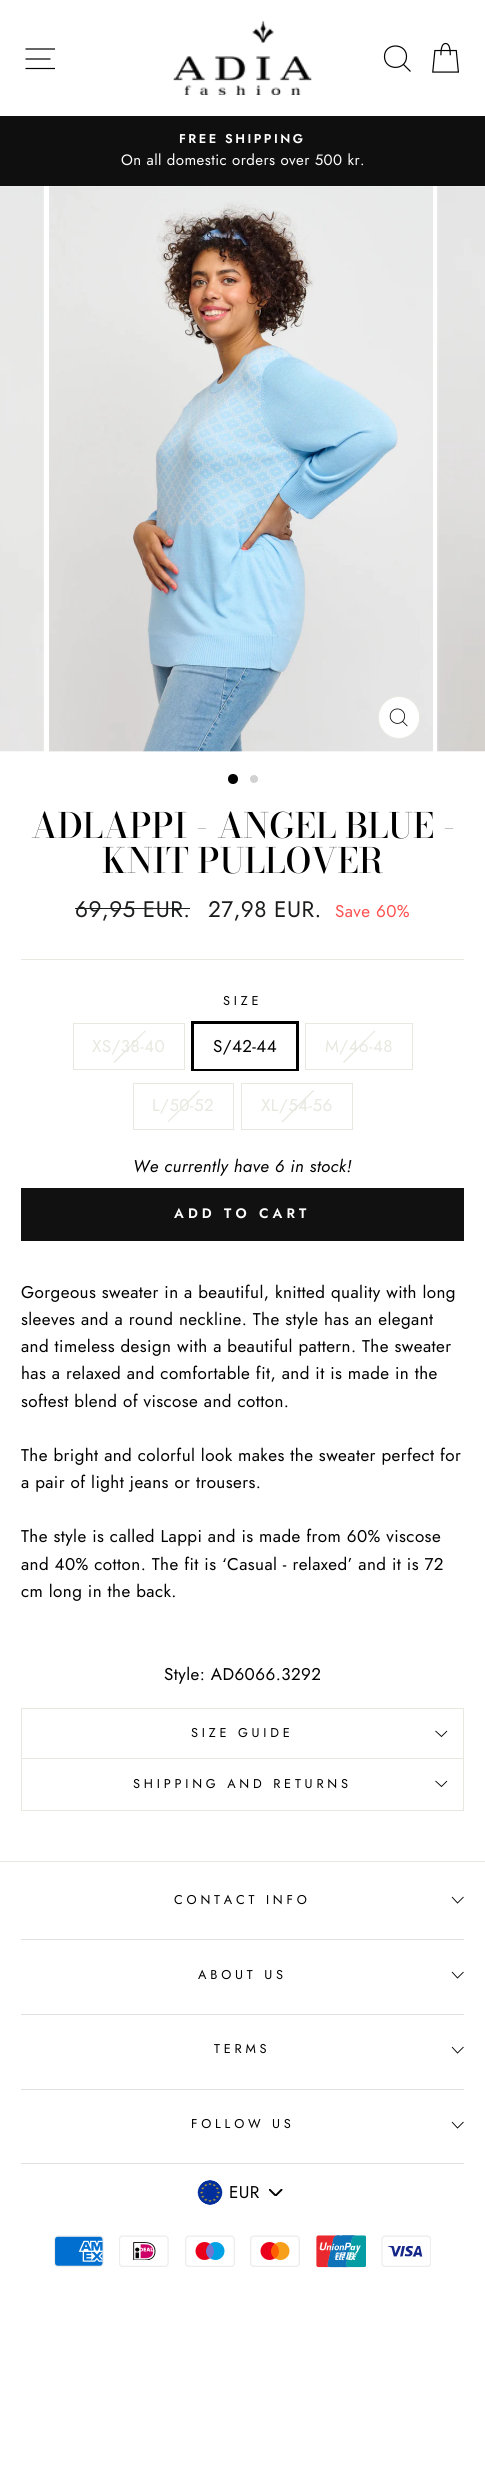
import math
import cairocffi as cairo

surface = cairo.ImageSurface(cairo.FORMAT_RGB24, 485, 2466)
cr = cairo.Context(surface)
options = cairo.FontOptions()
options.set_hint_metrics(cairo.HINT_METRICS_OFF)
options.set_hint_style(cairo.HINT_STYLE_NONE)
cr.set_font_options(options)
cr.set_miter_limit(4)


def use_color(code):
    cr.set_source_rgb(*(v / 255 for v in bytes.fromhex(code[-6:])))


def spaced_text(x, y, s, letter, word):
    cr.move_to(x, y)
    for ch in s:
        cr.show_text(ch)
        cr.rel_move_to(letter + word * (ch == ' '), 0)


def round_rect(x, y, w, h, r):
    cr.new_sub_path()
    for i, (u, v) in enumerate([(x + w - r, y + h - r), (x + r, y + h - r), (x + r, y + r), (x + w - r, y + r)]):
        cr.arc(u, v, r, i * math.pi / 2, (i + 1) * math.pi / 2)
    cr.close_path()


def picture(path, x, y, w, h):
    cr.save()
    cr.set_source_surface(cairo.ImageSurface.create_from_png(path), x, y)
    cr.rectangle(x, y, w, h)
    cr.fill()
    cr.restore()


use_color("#ffffff")
cr.paint()
cr.new_path()
cr.move_to(25.5, 49)
cr.line_to(55, 49)
cr.move_to(25.5, 59)
cr.line_to(50.5, 59)
cr.move_to(25.5, 68.5)
cr.line_to(55, 68.5)
use_color("#000000")
cr.set_line_width(1.2)
cr.stroke()
picture("img1.png", 173, 21, 139, 74)
cr.new_path()
cr.move_to(406.5, 56.5)
cr.curve_to(406.5, 71, 384.5, 71, 384.5, 56.5)
cr.curve_to(384.5, 42.5, 406.5, 42.5, 406.5, 56.5)
cr.close_path()
cr.move_to(410.5, 71.5)
cr.line_to(403.5, 64.5)
cr.stroke()
picture("img2.png", 432, 42, 27, 31)
use_color("#0f0f0f")
cr.rectangle(0, 116, 485, 70)
cr.fill()
cr.select_font_face("Jost SemiBold")
cr.set_font_size(12.75)
use_color("#ffffff")
spaced_text(179, 143, "FREE SHIPPING", 2.5, 0)
cr.select_font_face("Jost")
cr.set_font_size(15)
spaced_text(121, 165, "On all domestic orders over 500 kr.", 0.43, 0)
picture("img3.png", 0, 186, 44, 566)
picture("img4.png", 49, 186, 384, 566)
round_rect(378.5, 696.5, 41, 42, 20.5)
cr.fill_preserve()
use_color("#e8e8e1")
cr.set_line_width(1)
cr.stroke()
picture("img5.png", 389, 708, 19, 19)
picture("img6.png", 437, 186, 48, 566)
use_color("#000000")
cr.arc(233, 779, 5, 0, 2 * math.pi)
cr.fill()
use_color("#d1d1d1")
cr.arc(254, 779, 4, 0, 2 * math.pi)
cr.fill()
cr.select_font_face("Bodoni Moda Medium")
cr.set_font_size(34.75)
use_color("#000000")
cr.move_to(31, 838)
cr.show_text("ADLAPPI - ANGEL BLUE -")
cr.move_to(102, 873)
cr.show_text("KNIT PULLOVER")
cr.select_font_face("Jost")
cr.set_font_size(22.5)
use_color("#1c1d1d")
spaced_text(75, 917, "69,95 EUR.", 0.43, 0)
cr.rectangle(75, 908, 115, 1)
cr.fill()
spaced_text(208, 917, "27,98 EUR.", 0.43, 0)
cr.set_font_size(17)
use_color("#ff4e4e")
spaced_text(335, 917, "Save 60%", 0.43, 0)
use_color("#e8e8e1")
cr.rectangle(21, 959, 443, 1)
cr.fill()
cr.set_font_size(12.75)
use_color("#000000")
spaced_text(223, 1005, "SIZE", 3.8, 0)
cr.rectangle(73.5, 1023.5, 111, 46)
use_color("#e8e8e1")
cr.stroke()
cr.new_path()
cr.move_to(145, 1030.5)
cr.line_to(146, 1031)
cr.line_to(114.5, 1063)
cr.line_to(113.5, 1062)
cr.close_path()
cr.fill()
cr.set_font_size(17)
spaced_text(92, 1052, "XS/38-40", 0.43, 0)
cr.rectangle(192.5, 1022.5, 105, 47)
use_color("#000000")
cr.set_line_width(3)
cr.stroke()
use_color("#ffffff")
cr.rectangle(194, 1068, 102, 1)
cr.fill()
use_color("#000000")
spaced_text(213, 1052, "S/42-44", 0.43, 0)
cr.rectangle(305.5, 1023.5, 107, 46)
use_color("#e8e8e1")
cr.set_line_width(1)
cr.stroke()
cr.new_path()
cr.move_to(374.5, 1030.5)
cr.line_to(375.5, 1031)
cr.line_to(344, 1063)
cr.line_to(343, 1062)
cr.close_path()
cr.fill()
spaced_text(325, 1052, "M/46-48", 0.43, 0)
cr.rectangle(133.5, 1083.5, 100, 46)
cr.stroke()
cr.new_path()
cr.move_to(199, 1090)
cr.line_to(200, 1091)
cr.line_to(168, 1122.5)
cr.line_to(167.5, 1121.5)
cr.close_path()
cr.fill()
spaced_text(152, 1111, "L/50-52", 0.43, 0)
cr.rectangle(241.5, 1083.5, 111, 46)
cr.stroke()
cr.new_path()
cr.move_to(313, 1090)
cr.line_to(314, 1091)
cr.line_to(282.5, 1122.5)
cr.line_to(281.5, 1121.5)
cr.close_path()
cr.fill()
spaced_text(261, 1111, "XL/54-56", 0.43, 0)
cr.select_font_face("Jost", cairo.FONT_SLANT_ITALIC)
use_color("#000000")
spaced_text(133, 1172, "We currently have 6 in stock!", 0.43, 0)
use_color("#111111")
cr.rectangle(21, 1188, 443, 53)
cr.fill()
cr.select_font_face("Jost SemiBold")
cr.set_font_size(13.75)
use_color("#ffffff")
spaced_text(174, 1218, "ADD TO CART", 4.1, 0)
cr.select_font_face("Jost")
cr.set_font_size(17)
use_color("#000000")
spaced_text(21, 1298, "Gorgeous sweater in a beautiful, knitted quality with long", 0.43, 0)
spaced_text(21, 1325, "sleeves and a round neckline. The style has an elegant", 0.43, 0)
spaced_text(21, 1352, "and timeless design with a beautiful pattern. The sweater", 0.43, 0)
spaced_text(21, 1379, "has a relaxed and comfortable fit, and it is made in the", 0.43, 0)
spaced_text(21, 1407, "softest blend of viscose and cotton.", 0.43, 0)
spaced_text(21, 1461, "The bright and colorful look makes the sweater perfect for", 0.43, 0)
spaced_text(21, 1488, "a pair of light jeans or trousers.", 0.43, 0)
spaced_text(21, 1542, "The style is called Lappi and is made from 60% viscose", 0.43, 0)
spaced_text(21, 1570, "and 40% cotton. The fit is ‘Casual - relaxed’ and it is 72", 0.43, 0)
spaced_text(21, 1597, "cm long in the back.", 0.43, 0)
spaced_text(164, 1680, "Style: AD6066.3292", 0.43, 0)
use_color("#e8e8e1")
cr.rectangle(21, 1810, 443, 1)
cr.fill()
cr.rectangle(21, 1708, 443, 1)
cr.fill()
cr.rectangle(463, 1708, 1, 51)
cr.fill()
cr.rectangle(21, 1708, 1, 51)
cr.fill()
cr.set_font_size(12.75)
use_color("#000000")
spaced_text(191, 1737, "SIZE GUIDE", 3.8, 0)
cr.new_path()
cr.move_to(435.5, 1731)
cr.line_to(441.5, 1736.5)
cr.line_to(447, 1731)
cr.set_line_width(0.9)
cr.stroke()
use_color("#e8e8e1")
cr.rectangle(21, 1758, 443, 1)
cr.fill()
cr.rectangle(463, 1758, 1, 52)
cr.fill()
cr.rectangle(21, 1758, 1, 52)
cr.fill()
use_color("#000000")
spaced_text(133, 1788, "SHIPPING AND RETURNS", 3.8, 0)
cr.new_path()
cr.move_to(435.5, 1781)
cr.line_to(441.5, 1786.5)
cr.line_to(447, 1781)
cr.stroke()
use_color("#e8e8e1")
cr.rectangle(0, 1861, 485, 1)
cr.fill()
use_color("#000000")
spaced_text(174, 1904, "CONTACT INFO", 3.8, 0)
cr.new_path()
cr.move_to(452, 1897)
cr.line_to(457.5, 1903)
cr.line_to(463.5, 1897)
cr.stroke()
use_color("#e0e0e0")
cr.rectangle(21, 1939, 443, 1)
cr.fill()
use_color("#000000")
spaced_text(198, 1979, "ABOUT US", 3.8, 0)
cr.new_path()
cr.move_to(452, 1972)
cr.line_to(457.5, 1978)
cr.line_to(463.5, 1972)
cr.stroke()
use_color("#e0e0e0")
cr.rectangle(21, 2014, 443, 1)
cr.fill()
use_color("#000000")
spaced_text(214, 2053, "TERMS", 3.8, 0)
cr.new_path()
cr.move_to(452, 2047)
cr.line_to(457.5, 2053)
cr.line_to(463.5, 2047)
cr.stroke()
use_color("#e0e0e0")
cr.rectangle(21, 2089, 443, 1)
cr.fill()
use_color("#000000")
spaced_text(191, 2128, "FOLLOW US", 3.8, 0)
cr.new_path()
cr.move_to(452, 2122)
cr.line_to(457.5, 2128)
cr.line_to(463.5, 2122)
cr.stroke()
use_color("#e0e0e0")
cr.rectangle(21, 2163, 443, 1)
cr.fill()
picture("img7.png", 269, 2189, 14, 7)
picture("img8.png", 197, 2180, 26, 25)
cr.set_font_size(17)
use_color("#000000")
spaced_text(229, 2198, "EUR", 0.43, 0)
picture("img9.png", 54, 2235, 50, 32)
picture("img10.png", 119, 2235, 50, 32)
picture("img11.png", 185, 2235, 50, 32)
picture("img12.png", 250, 2235, 50, 32)
picture("img13.png", 316, 2235, 50, 33)
picture("img14.png", 381, 2235, 50, 32)
surface.write_to_png("result.png")
